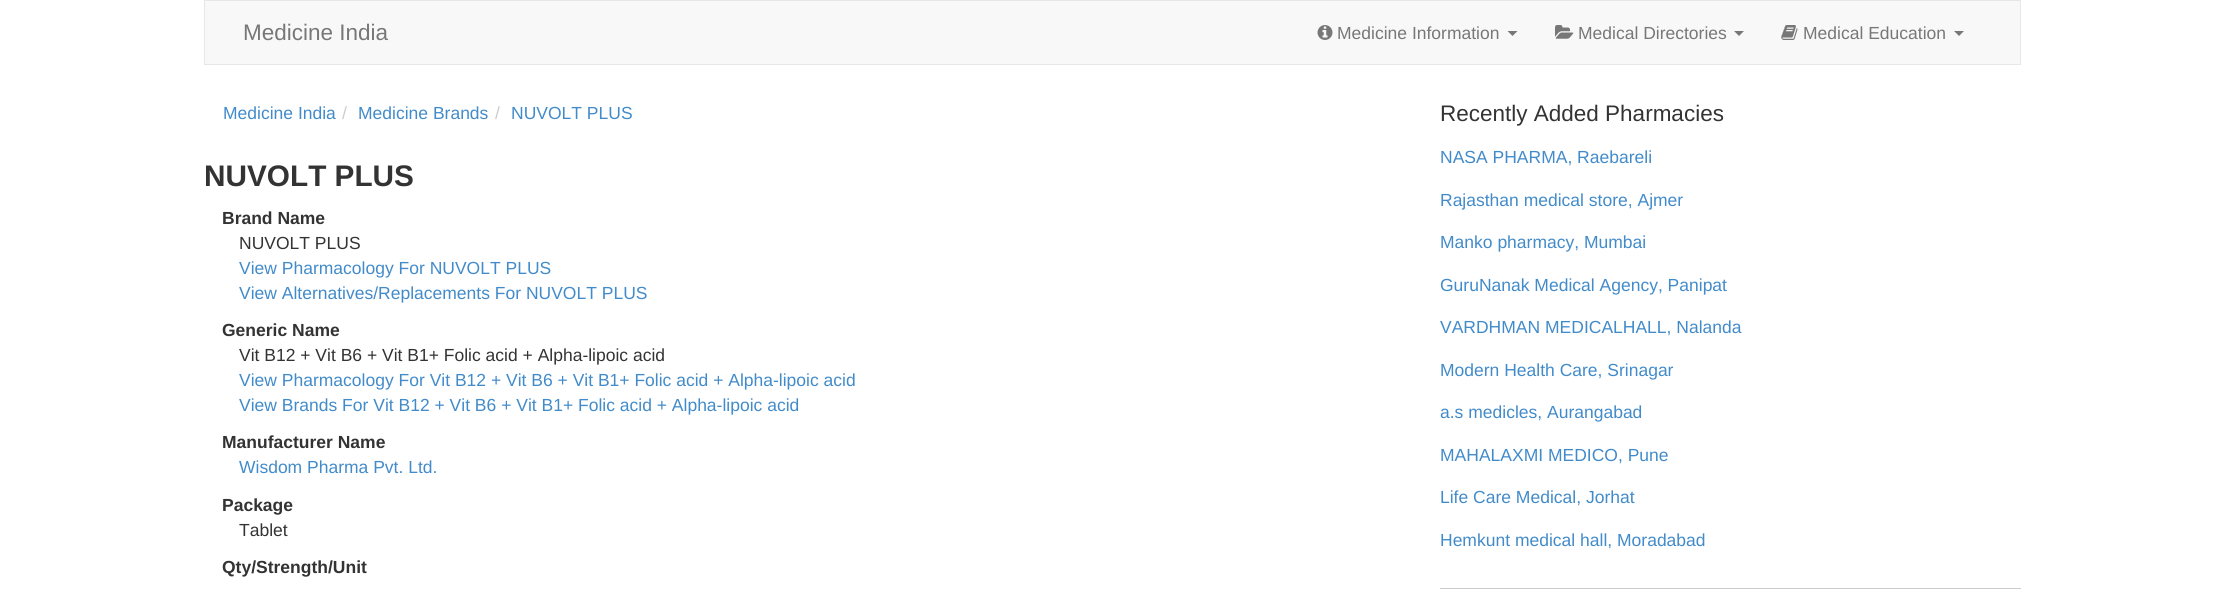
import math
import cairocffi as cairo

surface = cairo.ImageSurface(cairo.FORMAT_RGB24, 2225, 598)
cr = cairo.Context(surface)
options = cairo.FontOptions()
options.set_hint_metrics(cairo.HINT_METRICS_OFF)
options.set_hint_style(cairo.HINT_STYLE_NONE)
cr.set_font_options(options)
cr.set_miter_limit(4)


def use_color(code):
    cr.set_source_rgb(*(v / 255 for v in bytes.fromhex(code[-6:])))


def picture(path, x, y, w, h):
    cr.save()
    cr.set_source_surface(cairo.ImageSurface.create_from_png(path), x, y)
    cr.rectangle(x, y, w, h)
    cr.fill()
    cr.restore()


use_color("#ffffff")
cr.paint()
use_color("#f8f8f8")
cr.rectangle(204.5, 0.5, 1816, 64)
cr.fill_preserve()
use_color("#e7e7e7")
cr.set_line_width(1)
cr.stroke()
cr.select_font_face("Liberation Sans")
cr.set_font_size(22.5)
use_color("#777777")
cr.move_to(243, 40)
cr.show_text("Medicine India")
picture("img1.png", 1317, 25, 16, 15)
cr.set_font_size(17.5)
cr.move_to(1337, 39)
cr.show_text("Medicine Information")
cr.new_path()
cr.move_to(1507.5, 31)
cr.line_to(1517.5, 31)
cr.line_to(1512.5, 36)
cr.close_path()
cr.fill()
picture("img2.png", 1555, 25, 19, 14)
cr.move_to(1578, 39)
cr.show_text("Medical Directories")
cr.new_path()
cr.move_to(1734, 31)
cr.line_to(1744, 31)
cr.line_to(1739, 36)
cr.close_path()
cr.fill()
picture("img3.png", 1781, 25, 17, 15)
cr.move_to(1803, 39)
cr.show_text("Medical Education")
cr.new_path()
cr.move_to(1954, 31)
cr.line_to(1964, 31)
cr.line_to(1959, 36)
cr.close_path()
cr.fill()
use_color("#428bca")
cr.move_to(223, 119)
cr.show_text("Medicine India")
use_color("#cccccc")
cr.move_to(342, 119)
cr.show_text("/")
use_color("#428bca")
cr.move_to(358, 119)
cr.show_text("Medicine Brands")
use_color("#cccccc")
cr.move_to(495, 119)
cr.show_text("/")
use_color("#428bca")
cr.move_to(511, 119)
cr.show_text("NUVOLT PLUS")
cr.select_font_face("Liberation Sans", cairo.FONT_SLANT_NORMAL, cairo.FONT_WEIGHT_BOLD)
cr.set_font_size(29.75)
use_color("#333333")
cr.move_to(204, 186)
cr.show_text("NUVOLT PLUS")
cr.set_font_size(17.5)
cr.move_to(222, 224)
cr.show_text("Brand Name")
cr.select_font_face("Liberation Sans")
cr.move_to(239, 249)
cr.show_text("NUVOLT PLUS")
use_color("#428bca")
cr.move_to(239, 274)
cr.show_text("View Pharmacology For NUVOLT PLUS")
cr.move_to(239, 299)
cr.show_text("View Alternatives/Replacements For NUVOLT PLUS")
cr.select_font_face("Liberation Sans", cairo.FONT_SLANT_NORMAL, cairo.FONT_WEIGHT_BOLD)
use_color("#333333")
cr.move_to(222, 336)
cr.show_text("Generic Name")
cr.select_font_face("Liberation Sans")
cr.move_to(239, 361)
cr.show_text("Vit B12 + Vit B6 + Vit B1+ Folic acid + Alpha-lipoic acid")
use_color("#428bca")
cr.move_to(239, 386)
cr.show_text("View Pharmacology For Vit B12 + Vit B6 + Vit B1+ Folic acid + Alpha-lipoic acid")
cr.move_to(239, 411)
cr.show_text("View Brands For Vit B12 + Vit B6 + Vit B1+ Folic acid + Alpha-lipoic acid")
cr.select_font_face("Liberation Sans", cairo.FONT_SLANT_NORMAL, cairo.FONT_WEIGHT_BOLD)
use_color("#333333")
cr.move_to(222, 448)
cr.show_text("Manufacturer Name")
cr.select_font_face("Liberation Sans")
use_color("#428bca")
cr.move_to(239, 473)
cr.show_text("Wisdom Pharma Pvt. Ltd.")
cr.select_font_face("Liberation Sans", cairo.FONT_SLANT_NORMAL, cairo.FONT_WEIGHT_BOLD)
use_color("#333333")
cr.move_to(222, 511)
cr.show_text("Package")
cr.select_font_face("Liberation Sans")
cr.move_to(239, 536)
cr.show_text("Tablet")
cr.select_font_face("Liberation Sans", cairo.FONT_SLANT_NORMAL, cairo.FONT_WEIGHT_BOLD)
cr.move_to(222, 573)
cr.show_text("Qty/Strength/Unit")
cr.select_font_face("Liberation Sans")
cr.set_font_size(22.5)
cr.move_to(1440, 121)
cr.show_text("Recently Added Pharmacies")
cr.set_font_size(17.5)
use_color("#428bca")
cr.move_to(1440, 163)
cr.show_text("NASA PHARMA, Raebareli")
cr.move_to(1440, 206)
cr.show_text("Rajasthan medical store, Ajmer")
cr.move_to(1440, 248)
cr.show_text("Manko pharmacy, Mumbai")
cr.move_to(1440, 291)
cr.show_text("GuruNanak Medical Agency, Panipat")
cr.move_to(1440, 333)
cr.show_text("VARDHMAN MEDICALHALL, Nalanda")
cr.move_to(1440, 376)
cr.show_text("Modern Health Care, Srinagar")
cr.move_to(1440, 418)
cr.show_text("a.s medicles, Aurangabad")
cr.move_to(1440, 461)
cr.show_text("MAHALAXMI MEDICO, Pune")
cr.move_to(1440, 503)
cr.show_text("Life Care Medical, Jorhat")
cr.move_to(1440, 546)
cr.show_text("Hemkunt medical hall, Moradabad")
use_color("#cccccc")
cr.rectangle(1440, 588, 581, 1)
cr.fill()
surface.write_to_png("result.png")
